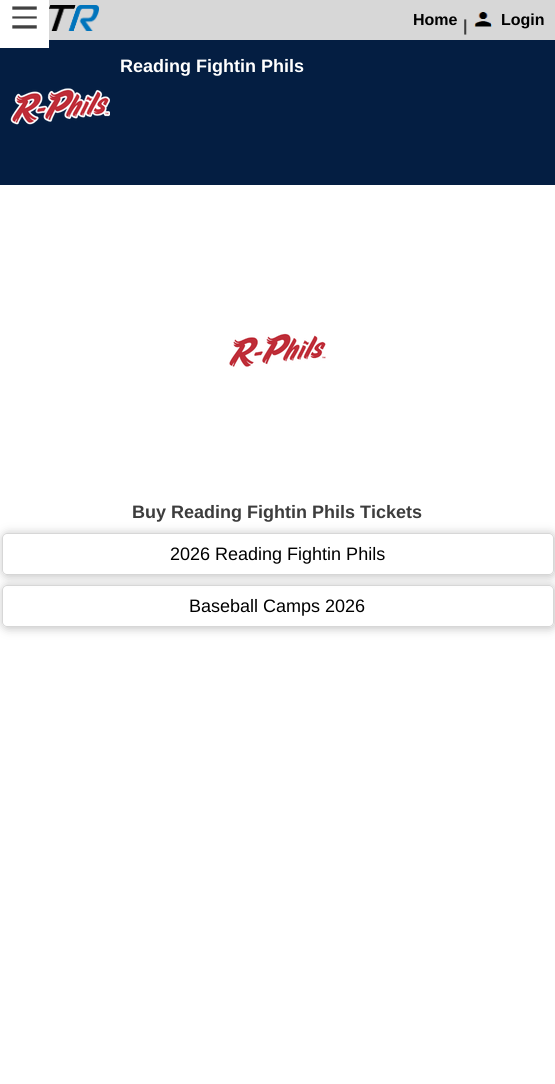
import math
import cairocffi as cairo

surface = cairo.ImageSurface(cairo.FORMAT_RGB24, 555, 1084)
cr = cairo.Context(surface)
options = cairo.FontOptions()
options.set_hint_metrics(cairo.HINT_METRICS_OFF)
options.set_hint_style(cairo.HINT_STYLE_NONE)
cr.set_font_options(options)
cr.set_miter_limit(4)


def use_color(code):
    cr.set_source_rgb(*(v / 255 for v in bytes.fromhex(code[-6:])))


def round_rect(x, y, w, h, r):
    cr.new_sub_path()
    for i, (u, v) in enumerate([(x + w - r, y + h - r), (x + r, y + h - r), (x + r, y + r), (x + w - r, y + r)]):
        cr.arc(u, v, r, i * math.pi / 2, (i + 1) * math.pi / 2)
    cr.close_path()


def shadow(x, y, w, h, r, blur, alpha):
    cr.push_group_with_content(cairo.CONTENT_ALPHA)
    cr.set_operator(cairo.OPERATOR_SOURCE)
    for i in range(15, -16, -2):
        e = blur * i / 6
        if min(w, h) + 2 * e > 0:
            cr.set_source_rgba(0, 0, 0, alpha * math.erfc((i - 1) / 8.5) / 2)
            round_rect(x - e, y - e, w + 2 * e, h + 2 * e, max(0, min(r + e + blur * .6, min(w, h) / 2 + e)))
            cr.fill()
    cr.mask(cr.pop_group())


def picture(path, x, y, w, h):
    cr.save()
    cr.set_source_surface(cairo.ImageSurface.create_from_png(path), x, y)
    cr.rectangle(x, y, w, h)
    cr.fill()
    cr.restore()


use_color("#ffffff")
cr.paint()
use_color("#d7d7d7")
cr.rectangle(49, 0, 506, 40)
cr.fill()
use_color("#041e42")
cr.rectangle(0, 40, 555, 145)
cr.fill()
use_color("#ffffff")
cr.rectangle(0, 40, 49, 8)
cr.fill()
picture("img1.png", 12, 6, 25, 23)
picture("img2.png", 49, 5, 50, 26)
cr.select_font_face("Liberation Sans", cairo.FONT_SLANT_NORMAL, cairo.FONT_WEIGHT_BOLD)
cr.set_font_size(16)
use_color("#000000")
cr.move_to(413, 25)
cr.show_text("Home")
use_color("#3d3d3d")
cr.move_to(463, 31)
cr.show_text("|")
picture("img3.png", 474, 12, 18, 15)
use_color("#000000")
cr.move_to(501, 25)
cr.show_text("Login")
cr.set_font_size(18)
use_color("#ffffff")
cr.move_to(120, 72)
cr.show_text("Reading Fightin Phils")
picture("img4.png", 10, 88, 100, 37)
picture("img5.png", 229, 333, 97, 34)
use_color("#3d3d3d")
cr.move_to(132, 518)
cr.show_text("Buy Reading Fightin Phils Tickets")
cr.save()
cr.set_fill_rule(cairo.FILL_RULE_EVEN_ODD)
cr.new_path()
cr.move_to(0, 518)
cr.line_to(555, 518)
cr.line_to(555, 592)
cr.line_to(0, 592)
cr.close_path()
cr.move_to(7, 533)
cr.line_to(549, 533)
cr.curve_to(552, 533, 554, 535, 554, 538)
cr.line_to(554, 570)
cr.curve_to(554, 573, 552, 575, 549, 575)
cr.line_to(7, 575)
cr.curve_to(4, 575, 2, 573, 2, 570)
cr.line_to(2, 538)
cr.curve_to(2, 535, 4, 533, 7, 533)
cr.close_path()
cr.clip()
use_color("#bdbdbd")
shadow(3, 534, 552, 42, 5, 5, 1)
cr.restore()
round_rect(2.5, 533.5, 551, 41, 4.5)
use_color("#d7d7d7")
cr.set_line_width(1)
cr.stroke()
cr.select_font_face("Liberation Sans")
use_color("#000000")
cr.move_to(170, 560)
cr.show_text("2026 Reading Fightin Phils")
cr.save()
cr.set_fill_rule(cairo.FILL_RULE_EVEN_ODD)
cr.new_path()
cr.move_to(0, 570)
cr.line_to(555, 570)
cr.line_to(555, 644)
cr.line_to(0, 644)
cr.close_path()
cr.move_to(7, 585)
cr.line_to(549, 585)
cr.curve_to(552, 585, 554, 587, 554, 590)
cr.line_to(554, 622)
cr.curve_to(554, 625, 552, 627, 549, 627)
cr.line_to(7, 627)
cr.curve_to(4, 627, 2, 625, 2, 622)
cr.line_to(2, 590)
cr.curve_to(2, 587, 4, 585, 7, 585)
cr.close_path()
cr.clip()
use_color("#bdbdbd")
shadow(3, 586, 552, 42, 5, 5, 1)
cr.restore()
round_rect(2.5, 585.5, 551, 41, 4.5)
use_color("#d7d7d7")
cr.stroke()
use_color("#000000")
cr.move_to(189, 612)
cr.show_text("Baseball Camps 2026")
surface.write_to_png("result.png")
